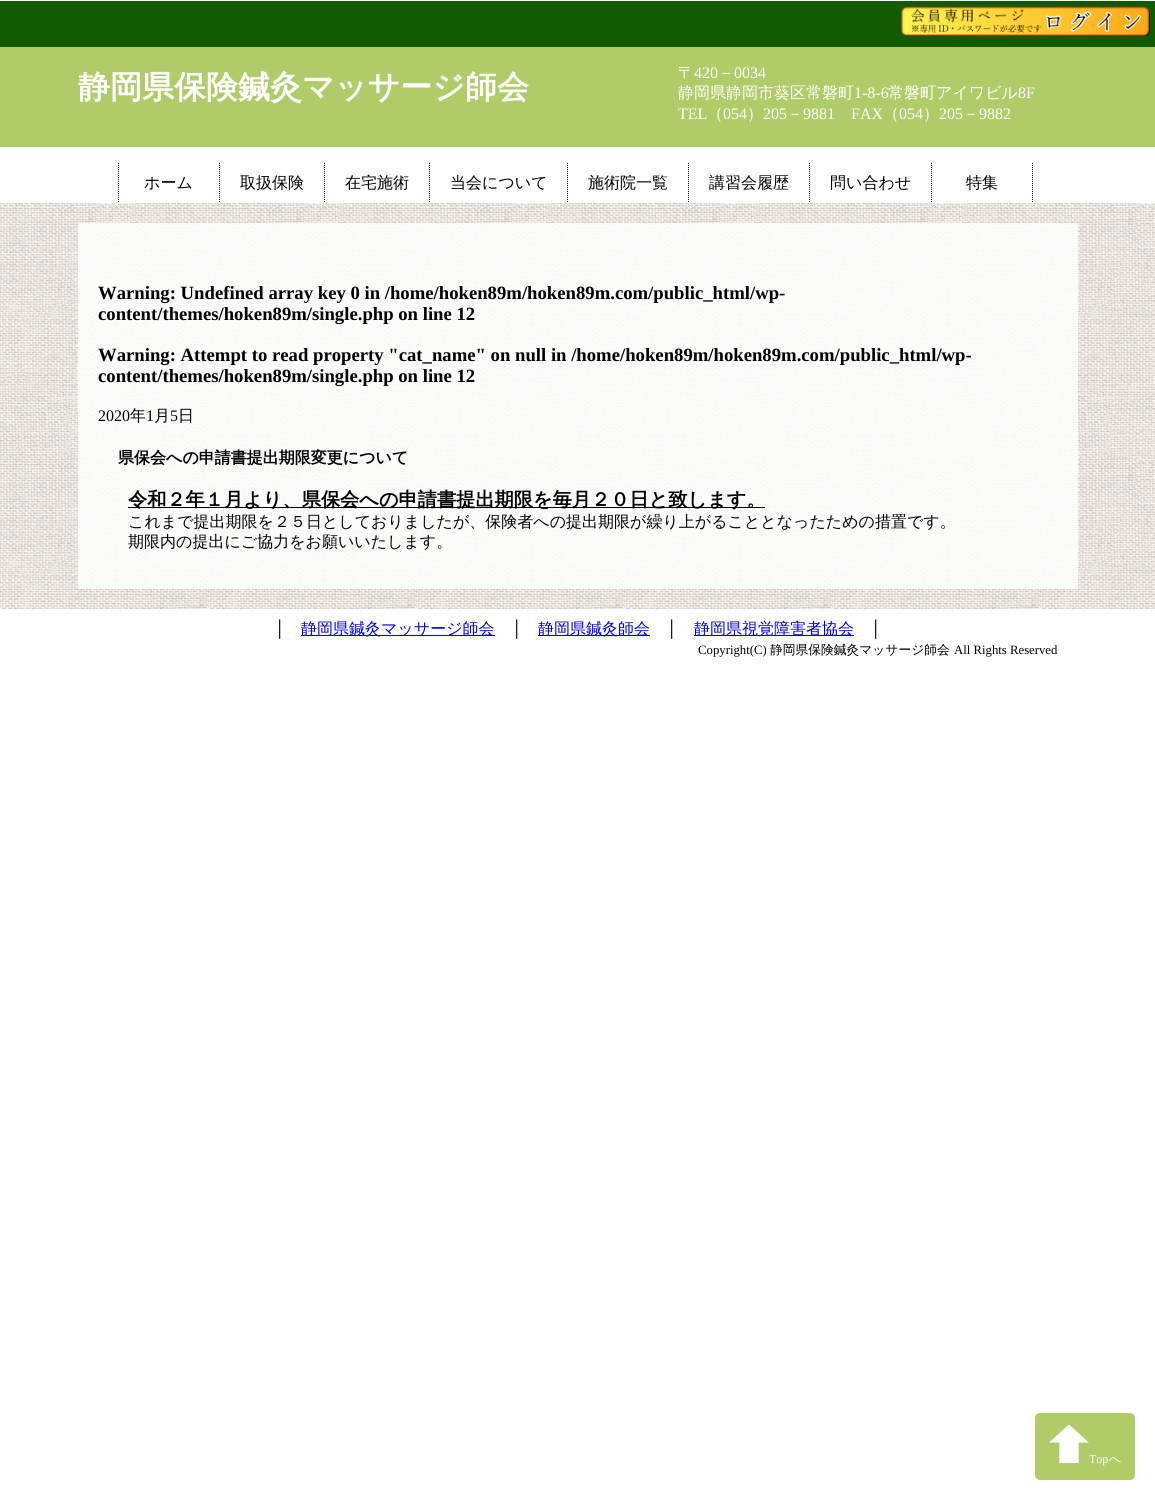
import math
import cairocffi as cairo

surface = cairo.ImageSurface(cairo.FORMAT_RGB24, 1155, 1512)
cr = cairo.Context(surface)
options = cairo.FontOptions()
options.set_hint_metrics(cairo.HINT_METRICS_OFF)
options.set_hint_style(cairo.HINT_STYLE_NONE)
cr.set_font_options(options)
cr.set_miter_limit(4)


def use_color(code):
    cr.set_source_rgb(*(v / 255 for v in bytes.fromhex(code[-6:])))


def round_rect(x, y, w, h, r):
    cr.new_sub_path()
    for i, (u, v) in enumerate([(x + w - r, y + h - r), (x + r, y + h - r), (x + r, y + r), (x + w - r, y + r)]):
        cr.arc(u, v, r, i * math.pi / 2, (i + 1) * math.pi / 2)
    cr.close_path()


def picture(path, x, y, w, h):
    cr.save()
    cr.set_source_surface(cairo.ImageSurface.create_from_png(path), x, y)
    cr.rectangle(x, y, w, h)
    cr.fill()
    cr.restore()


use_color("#ffffff")
cr.paint()
use_color("#125b03")
cr.rectangle(0, 1, 1155, 46)
cr.fill()
picture("img1.png", 901, 6, 249, 30)
use_color("#afcc69")
cr.rectangle(0, 47, 1155, 100)
cr.fill()
cr.select_font_face("WenQuanYi Zen Hei", cairo.FONT_SLANT_NORMAL, cairo.FONT_WEIGHT_BOLD)
cr.set_font_size(32)
use_color("#ffffff")
cr.move_to(78, 98)
cr.show_text("静岡県保険鍼灸マッサージ師会")
cr.select_font_face("WenQuanYi Zen Hei Medium")
cr.set_font_size(16)
cr.move_to(678, 78)
cr.show_text("〒")
cr.select_font_face("Liberation Serif")
cr.move_to(694, 78)
cr.show_text("420")
cr.select_font_face("WenQuanYi Zen Hei Medium")
cr.move_to(718, 78)
cr.show_text("－")
cr.select_font_face("Liberation Serif")
cr.move_to(734, 78)
cr.show_text("0034")
cr.select_font_face("WenQuanYi Zen Hei Medium")
cr.move_to(678, 98)
cr.show_text("静岡県静岡市葵区常磐町")
cr.select_font_face("Liberation Serif")
cr.move_to(854, 98)
cr.show_text("1-8-6")
cr.select_font_face("WenQuanYi Zen Hei Medium")
cr.move_to(888, 98)
cr.show_text("常磐町アイワビル")
cr.select_font_face("Liberation Serif")
cr.move_to(1018, 98)
cr.show_text("8F")
cr.move_to(678, 119)
cr.show_text("TEL")
cr.select_font_face("WenQuanYi Zen Hei Medium")
cr.move_to(707, 119)
cr.show_text("（")
cr.select_font_face("Liberation Serif")
cr.move_to(723, 119)
cr.show_text("054")
cr.select_font_face("WenQuanYi Zen Hei Medium")
cr.move_to(747, 119)
cr.show_text("）")
cr.select_font_face("Liberation Serif")
cr.move_to(763, 119)
cr.show_text("205")
cr.select_font_face("WenQuanYi Zen Hei Medium")
cr.move_to(787, 119)
cr.show_text("－")
cr.select_font_face("Liberation Serif")
cr.move_to(803, 119)
cr.show_text("9881")
cr.move_to(851, 119)
cr.show_text("FAX")
cr.select_font_face("WenQuanYi Zen Hei Medium")
cr.move_to(883, 119)
cr.show_text("（")
cr.select_font_face("Liberation Serif")
cr.move_to(899, 119)
cr.show_text("054")
cr.select_font_face("WenQuanYi Zen Hei Medium")
cr.move_to(923, 119)
cr.show_text("）")
cr.select_font_face("Liberation Serif")
cr.move_to(939, 119)
cr.show_text("205")
cr.select_font_face("WenQuanYi Zen Hei Medium")
cr.move_to(963, 119)
cr.show_text("－")
cr.select_font_face("Liberation Serif")
cr.move_to(979, 119)
cr.show_text("9882")
cr.new_path()
cr.move_to(219.5, 163)
cr.line_to(219.5, 203)
use_color("#000000")
cr.set_line_width(1)
cr.set_dash([1, 1])
cr.stroke()
cr.new_path()
cr.move_to(118.5, 163)
cr.line_to(118.5, 203)
cr.stroke()
cr.select_font_face("WenQuanYi Zen Hei Medium")
cr.move_to(144, 188)
cr.show_text("ホーム")
cr.new_path()
cr.move_to(324.5, 163)
cr.line_to(324.5, 203)
cr.stroke()
cr.move_to(240, 188)
cr.show_text("取扱保険")
cr.new_path()
cr.move_to(429.5, 163)
cr.line_to(429.5, 203)
cr.stroke()
cr.move_to(345, 188)
cr.show_text("在宅施術")
cr.new_path()
cr.move_to(567.5, 163)
cr.line_to(567.5, 203)
cr.stroke()
cr.move_to(450, 188)
cr.show_text("当会について")
cr.new_path()
cr.move_to(688.5, 163)
cr.line_to(688.5, 203)
cr.stroke()
cr.move_to(588, 188)
cr.show_text("施術院一覧")
cr.new_path()
cr.move_to(809.5, 163)
cr.line_to(809.5, 203)
cr.stroke()
cr.move_to(709, 188)
cr.show_text("講習会履歴")
cr.new_path()
cr.move_to(931.5, 163)
cr.line_to(931.5, 203)
cr.stroke()
cr.move_to(830, 188)
cr.show_text("問い合わせ")
cr.new_path()
cr.move_to(1032.5, 163)
cr.line_to(1032.5, 203)
cr.stroke()
cr.move_to(966, 188)
cr.show_text("特集")
picture("img2.png", 0, 203, 1155, 406)
cr.set_source_rgba(1, 1, 1, 0.84)
cr.rectangle(78, 223, 1000, 366)
cr.fill()
cr.select_font_face("Liberation Serif", cairo.FONT_SLANT_NORMAL, cairo.FONT_WEIGHT_BOLD)
cr.set_font_size(18.7)
use_color("#000000")
cr.move_to(98, 299)
cr.show_text("Warning: Undefined array key 0 in /home/hoken89m/hoken89m.com/public_html/wp-")
cr.move_to(98, 320)
cr.show_text("content/themes/hoken89m/single.php on line 12")
cr.move_to(98, 361)
cr.show_text("Warning: Attempt to read property \"cat_name\" on null in /home/hoken89m/hoken89m.com/public_html/wp-")
cr.move_to(98, 382)
cr.show_text("content/themes/hoken89m/single.php on line 12")
cr.select_font_face("Liberation Serif")
cr.set_font_size(16)
cr.move_to(98, 421)
cr.show_text("2020")
cr.select_font_face("WenQuanYi Zen Hei Medium")
cr.move_to(130, 421)
cr.show_text("年")
cr.select_font_face("Liberation Serif")
cr.move_to(146, 421)
cr.show_text("1")
cr.select_font_face("WenQuanYi Zen Hei Medium")
cr.move_to(154, 421)
cr.show_text("月")
cr.select_font_face("Liberation Serif")
cr.move_to(170, 421)
cr.show_text("5")
cr.select_font_face("WenQuanYi Zen Hei Medium")
cr.move_to(178, 421)
cr.show_text("日")
cr.select_font_face("WenQuanYi Zen Hei", cairo.FONT_SLANT_NORMAL, cairo.FONT_WEIGHT_BOLD)
cr.move_to(118, 463)
cr.show_text("県保会への申請書提出期限変更について")
cr.rectangle(128, 507, 637, 1)
cr.fill()
cr.set_font_size(19.2)
cr.move_to(128, 506)
cr.show_text("令和２年１月より、県保会への申請書提出期限を毎月２０日と致します。")
cr.select_font_face("WenQuanYi Zen Hei Medium")
cr.set_font_size(16)
cr.move_to(128, 527)
cr.show_text("これまで提出期限を２５日としておりましたが、保険者への提出期限が繰り上がることとなったための措置です。")
cr.move_to(128, 547)
cr.show_text("期限内の提出にご協力をお願いいたします。")
cr.select_font_face("Liberation Serif")
cr.move_to(274, 634)
cr.show_text("│")
use_color("#0000ee")
cr.rectangle(301, 635, 194, 1)
cr.fill()
cr.select_font_face("WenQuanYi Zen Hei Medium")
cr.move_to(301, 634)
cr.show_text("静岡県鍼灸マッサージ師会")
cr.select_font_face("Liberation Serif")
use_color("#000000")
cr.move_to(511, 634)
cr.show_text("│")
use_color("#0000ee")
cr.rectangle(538, 635, 112, 1)
cr.fill()
cr.select_font_face("WenQuanYi Zen Hei Medium")
cr.move_to(538, 634)
cr.show_text("静岡県鍼灸師会")
cr.select_font_face("Liberation Serif")
use_color("#000000")
cr.move_to(666, 634)
cr.show_text("│")
use_color("#0000ee")
cr.rectangle(694, 635, 160, 1)
cr.fill()
cr.select_font_face("WenQuanYi Zen Hei Medium")
cr.move_to(694, 634)
cr.show_text("静岡県視覚障害者協会")
cr.select_font_face("Liberation Serif")
use_color("#000000")
cr.move_to(870, 634)
cr.show_text("│")
cr.set_font_size(12.75)
cr.move_to(698, 654)
cr.show_text("Copyright(C)")
cr.select_font_face("WenQuanYi Zen Hei Medium")
cr.move_to(770, 654)
cr.show_text("静岡県保険鍼灸マッサージ師会")
cr.select_font_face("Liberation Serif")
cr.move_to(954, 654)
cr.show_text("All Rights Reserved")
use_color("#afcc69")
round_rect(1035, 1413, 100, 67, 5)
cr.fill()
picture("img3.png", 1049, 1424, 40, 39)
cr.set_font_size(12)
use_color("#ffffff")
cr.move_to(1089, 1463)
cr.show_text("Top")
cr.select_font_face("WenQuanYi Zen Hei Medium")
cr.move_to(1109, 1463)
cr.show_text("へ")
surface.write_to_png("result.png")
